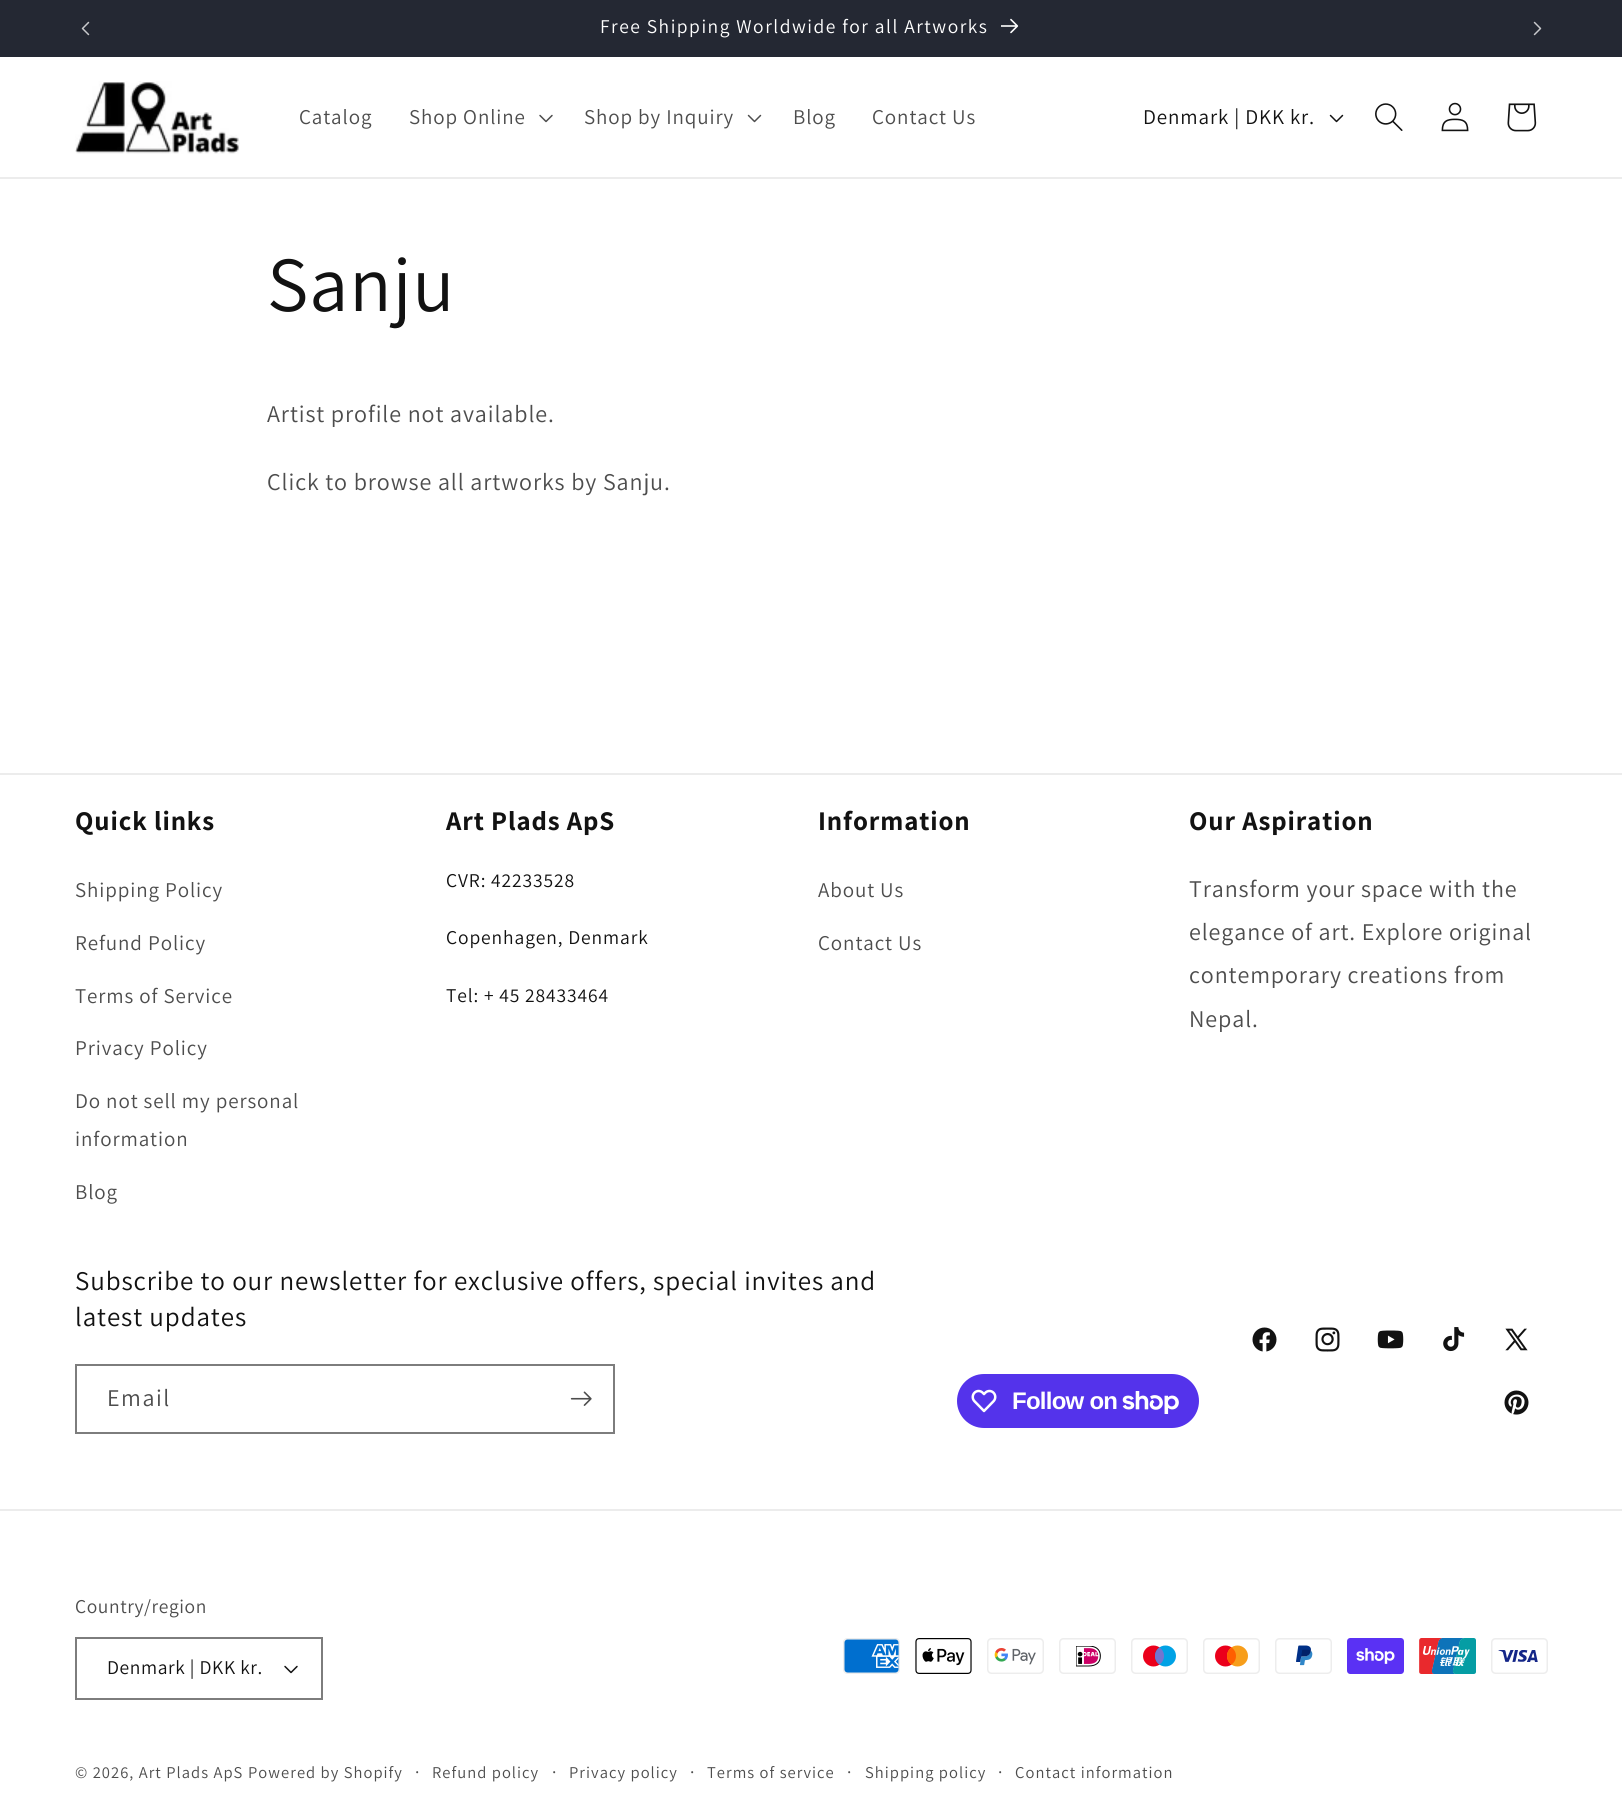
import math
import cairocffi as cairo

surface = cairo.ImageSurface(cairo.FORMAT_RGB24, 1622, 1811)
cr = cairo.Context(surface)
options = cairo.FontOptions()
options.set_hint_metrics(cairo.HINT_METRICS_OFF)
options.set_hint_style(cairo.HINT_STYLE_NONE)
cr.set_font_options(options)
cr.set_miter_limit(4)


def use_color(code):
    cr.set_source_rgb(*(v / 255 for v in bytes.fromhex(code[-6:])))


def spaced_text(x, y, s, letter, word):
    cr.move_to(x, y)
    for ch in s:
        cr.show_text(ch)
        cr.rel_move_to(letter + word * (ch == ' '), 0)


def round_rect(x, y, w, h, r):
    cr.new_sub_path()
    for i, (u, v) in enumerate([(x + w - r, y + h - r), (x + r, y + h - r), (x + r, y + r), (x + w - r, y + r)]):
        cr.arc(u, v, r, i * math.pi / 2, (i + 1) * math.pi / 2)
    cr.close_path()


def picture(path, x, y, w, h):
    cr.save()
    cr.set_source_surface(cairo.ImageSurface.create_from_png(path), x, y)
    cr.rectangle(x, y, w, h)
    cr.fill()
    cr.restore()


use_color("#ffffff")
cr.paint()
use_color("#242833")
cr.rectangle(0, 0, 1622, 57)
cr.fill()
picture("img1.png", 81, 21, 9, 15)
cr.select_font_face("Assistant")
cr.set_font_size(19.5)
use_color("#ffffff")
spaced_text(600, 33, "Free Shipping Worldwide for all Artworks", 1.5, 0)
picture("img2.png", 1001, 18, 18, 16)
picture("img3.png", 1533, 21, 9, 15)
use_color("#ececec")
cr.rectangle(0, 177, 1622, 2)
cr.fill()
picture("img4.png", 75, 81, 165, 73)
cr.set_font_size(21)
use_color("#4d4d4d")
spaced_text(299, 124, "Catalog", 0.9, 0)
spaced_text(409, 124, "Shop Online", 0.9, 0)
picture("img5.png", 539, 114, 14, 9)
spaced_text(584, 124, "Shop by Inquiry", 0.9, 0)
picture("img6.png", 747, 114, 15, 9)
spaced_text(793, 124, "Blog", 0.9, 0)
spaced_text(872, 124, "Contact Us", 0.9, 0)
use_color("#121212")
spaced_text(1143, 124, "Denmark | DKK kr.", 0.9, 0)
picture("img7.png", 1329, 114, 15, 9)
picture("img8.png", 1375, 103, 28, 28)
picture("img9.png", 1441, 102, 28, 30)
picture("img10.png", 1507, 103, 30, 29)
cr.set_font_size(78)
spaced_text(267, 311, "Sanju", 0.9, 0)
cr.set_font_size(24)
use_color("#4d4d4d")
spaced_text(267, 422, "Artist profile not available.", 0.9, 0)
spaced_text(267, 490, "Click to browse all artworks by Sanju.", 0.9, 0)
use_color("#ececec")
cr.rectangle(0, 773, 1622, 2)
cr.fill()
cr.select_font_face("Assistant", cairo.FONT_SLANT_NORMAL, cairo.FONT_WEIGHT_BOLD)
cr.set_font_size(27)
use_color("#121212")
spaced_text(75, 830, "Quick links", 0.9, 0)
cr.select_font_face("Assistant")
cr.set_font_size(21)
use_color("#4d4d4d")
spaced_text(75, 897, "Shipping Policy", 0.9, 0)
spaced_text(75, 950, "Refund Policy", 0.9, 0)
spaced_text(75, 1003, "Terms of Service", 0.9, 0)
spaced_text(75, 1055, "Privacy Policy", 0.9, 0)
spaced_text(75, 1108, "Do not sell my personal", 0.9, 0)
spaced_text(75, 1146, "information", 0.9, 0)
spaced_text(75, 1199, "Blog", 0.9, 0)
cr.select_font_face("Assistant", cairo.FONT_SLANT_NORMAL, cairo.FONT_WEIGHT_BOLD)
cr.set_font_size(27)
use_color("#121212")
spaced_text(446, 830, "Art Plads ApS", 0.9, 0)
cr.select_font_face("Assistant")
cr.set_font_size(19.5)
spaced_text(446, 887, "CVR: 42233528", 0.9, 0)
spaced_text(446, 944, "Copenhagen, Denmark", 0.9, 0)
spaced_text(446, 1002, "Tel: + 45 28433464", 0.9, 0)
cr.select_font_face("Assistant", cairo.FONT_SLANT_NORMAL, cairo.FONT_WEIGHT_BOLD)
cr.set_font_size(27)
spaced_text(818, 830, "Information", 0.9, 0)
cr.select_font_face("Assistant")
cr.set_font_size(21)
use_color("#4d4d4d")
spaced_text(818, 897, "About Us", 0.9, 0)
spaced_text(818, 950, "Contact Us", 0.9, 0)
cr.select_font_face("Assistant", cairo.FONT_SLANT_NORMAL, cairo.FONT_WEIGHT_BOLD)
cr.set_font_size(27)
use_color("#121212")
spaced_text(1189, 830, "Our Aspiration", 0.9, 0)
cr.select_font_face("Assistant")
cr.set_font_size(24)
use_color("#4d4d4d")
spaced_text(1189, 897, "Transform your space with the", 0.9, 0)
spaced_text(1189, 940, "elegance of art. Explore original", 0.9, 0)
spaced_text(1189, 983, "contemporary creations from", 0.9, 0)
spaced_text(1189, 1027, "Nepal.", 0.9, 0)
cr.set_font_size(27)
use_color("#121212")
spaced_text(75, 1290, "Subscribe to our newsletter for exclusive offers, special invites and", 0.9, 0)
spaced_text(75, 1326, "latest updates", 0.9, 0)
cr.rectangle(76, 1365, 538, 68)
use_color("#7d7d7d")
cr.stroke()
cr.set_font_size(24)
use_color("#4d4d4d")
spaced_text(107, 1406, "Email", 1.5, 0)
picture("img11.png", 570, 1391, 22, 15)
use_color("#5433eb")
round_rect(957, 1374, 242, 54, 27)
cr.fill()
picture("img12.png", 971, 1389, 26, 24)
cr.select_font_face("Liberation Sans", cairo.FONT_SLANT_NORMAL, cairo.FONT_WEIGHT_BOLD)
use_color("#ffffff")
spaced_text(1012, 1409, "Follow on", -0.75, 0)
picture("img13.png", 1122, 1391, 57, 23)
picture("img14.png", 1252, 1327, 25, 25)
picture("img15.png", 1315, 1327, 25, 25)
picture("img16.png", 1377, 1330, 27, 19)
picture("img17.png", 1443, 1327, 22, 25)
picture("img18.png", 1505, 1328, 23, 23)
picture("img19.png", 1504, 1390, 25, 25)
use_color("#ececec")
cr.rectangle(0, 1509, 1622, 2)
cr.fill()
cr.select_font_face("Assistant")
cr.set_font_size(19.5)
use_color("#4d4d4d")
spaced_text(75, 1613, "Country/region", 0.6, 0)
picture("img20.png", 284, 1665, 14, 9)
cr.rectangle(76, 1638, 246, 61)
use_color("#7d7d7d")
cr.stroke()
use_color("#121212")
spaced_text(107, 1674, "Denmark | DKK kr.", 0.6, 0)
picture("img21.png", 843, 1638, 57, 36)
picture("img22.png", 915, 1638, 57, 36)
picture("img23.png", 987, 1638, 57, 36)
picture("img24.png", 1059, 1638, 57, 36)
picture("img25.png", 1131, 1638, 57, 36)
picture("img26.png", 1203, 1638, 57, 36)
picture("img27.png", 1275, 1638, 57, 36)
picture("img28.png", 1347, 1638, 57, 36)
picture("img29.png", 1419, 1638, 57, 36)
picture("img30.png", 1491, 1638, 57, 36)
cr.set_font_size(16.5)
use_color("#4d4d4d")
spaced_text(75, 1778, "© 2026, Art Plads ApS", 1.05, 0)
spaced_text(248, 1778, "Powered by Shopify", 1.05, 0)
cr.set_font_size(18)
spaced_text(415, 1778, "·", 1.05, 0)
cr.set_font_size(16.5)
spaced_text(432, 1778, "Refund policy", 1.05, 0)
cr.set_font_size(18)
spaced_text(552, 1778, "·", 1.05, 0)
cr.set_font_size(16.5)
spaced_text(569, 1778, "Privacy policy", 1.05, 0)
cr.set_font_size(18)
spaced_text(690, 1778, "·", 1.05, 0)
cr.set_font_size(16.5)
spaced_text(707, 1778, "Terms of service", 1.05, 0)
cr.set_font_size(18)
spaced_text(847, 1778, "·", 1.05, 0)
cr.set_font_size(16.5)
spaced_text(865, 1778, "Shipping policy", 1.05, 0)
cr.set_font_size(18)
spaced_text(998, 1778, "·", 1.05, 0)
cr.set_font_size(16.5)
spaced_text(1015, 1778, "Contact information", 1.05, 0)
surface.write_to_png("result.png")
